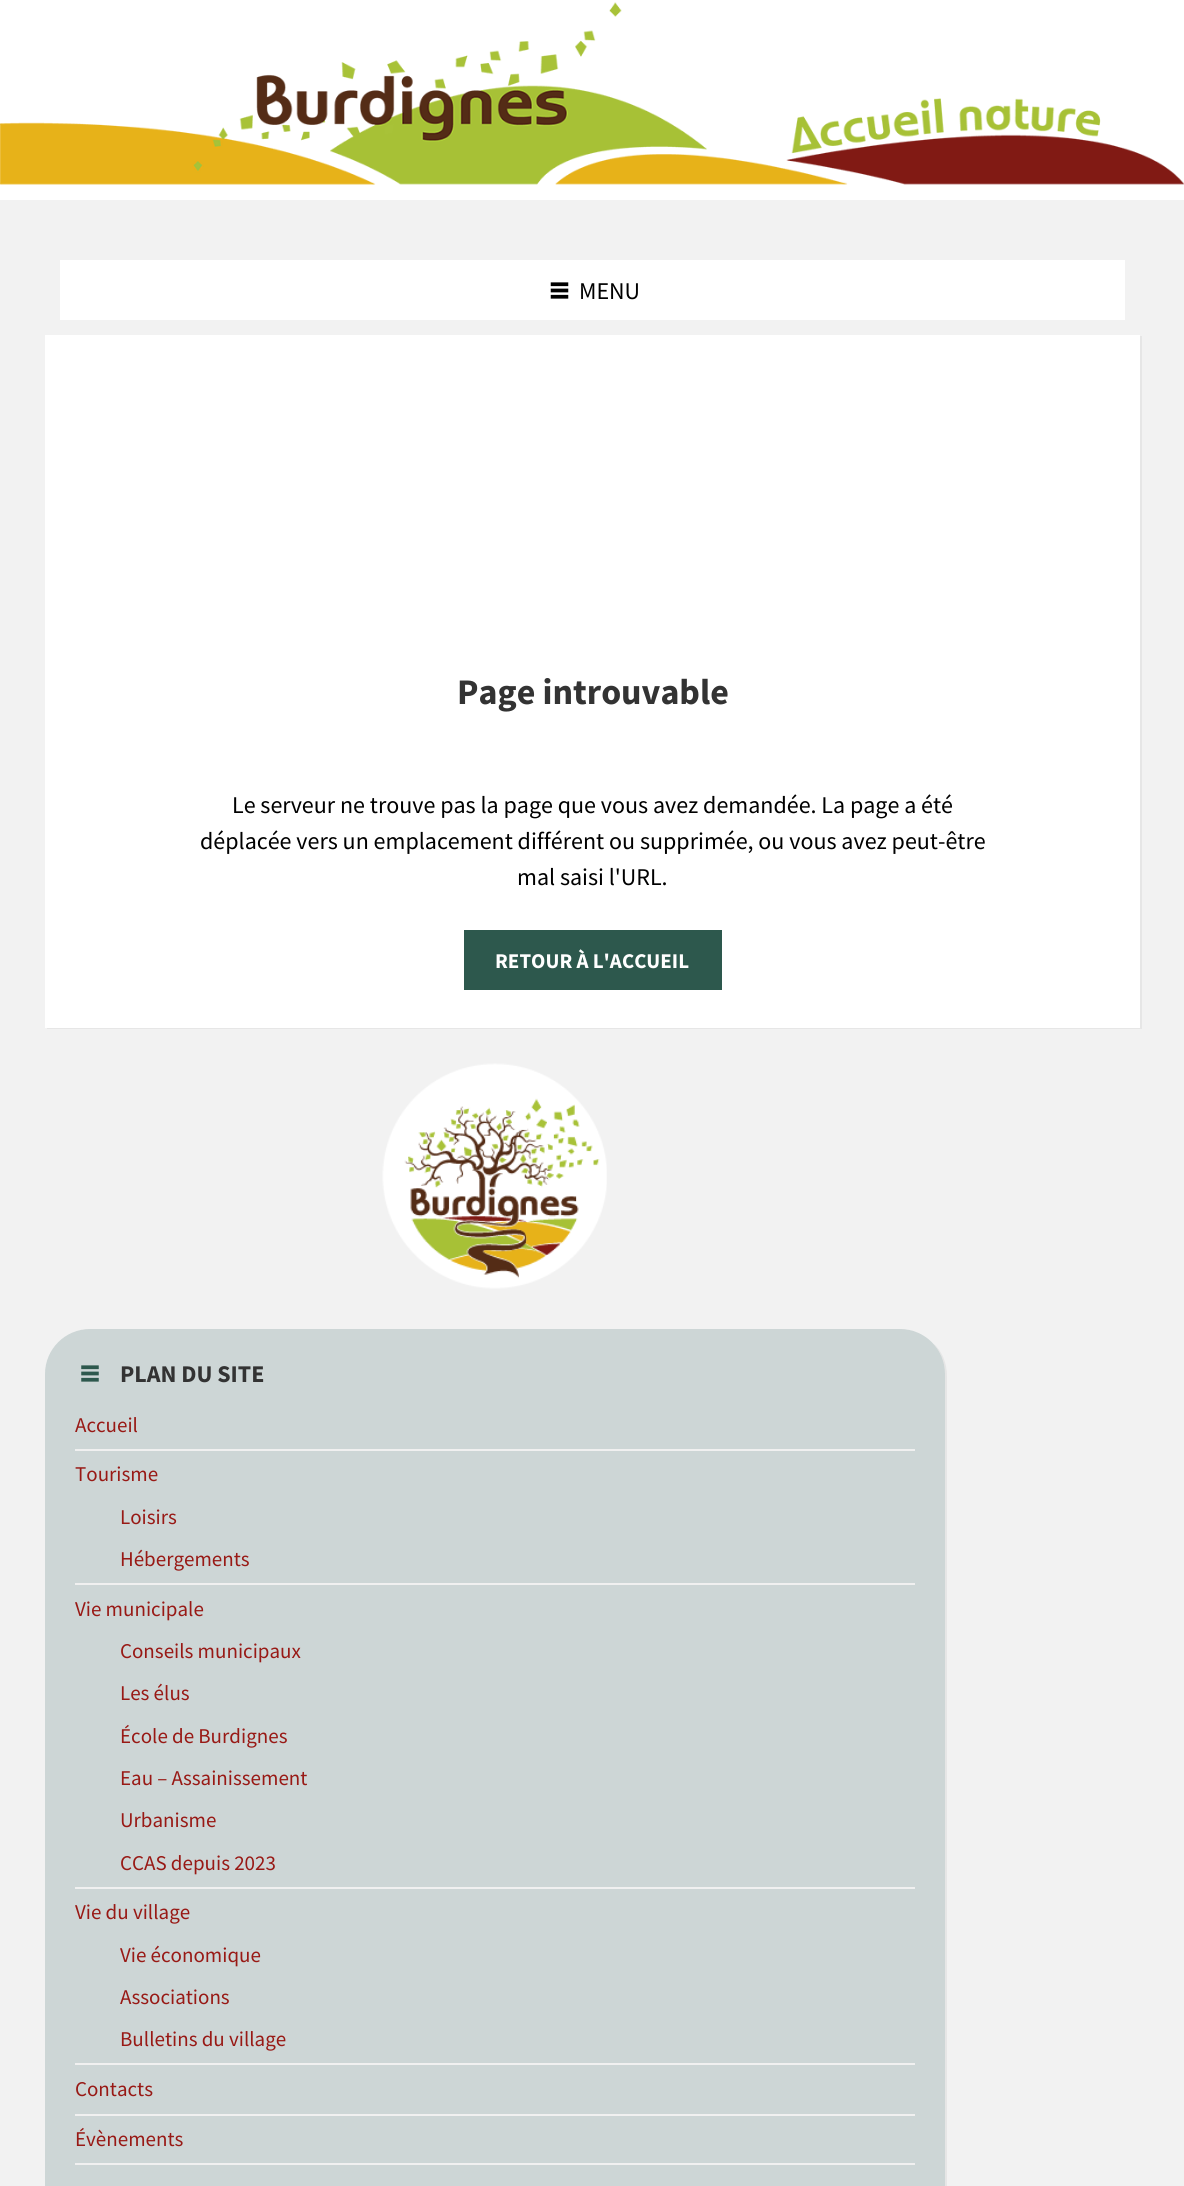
import math
import cairocffi as cairo

surface = cairo.ImageSurface(cairo.FORMAT_RGB24, 1184, 2186)
cr = cairo.Context(surface)
options = cairo.FontOptions()
options.set_hint_metrics(cairo.HINT_METRICS_OFF)
options.set_hint_style(cairo.HINT_STYLE_NONE)
cr.set_font_options(options)
cr.set_miter_limit(4)


def use_color(code):
    cr.set_source_rgb(*(v / 255 for v in bytes.fromhex(code[-6:])))


def round_rect(x, y, w, h, r):
    cr.new_sub_path()
    for i, (u, v) in enumerate([(x + w - r, y + h - r), (x + r, y + h - r), (x + r, y + r), (x + w - r, y + r)]):
        cr.arc(u, v, r, i * math.pi / 2, (i + 1) * math.pi / 2)
    cr.close_path()


def picture(path, x, y, w, h):
    cr.save()
    cr.set_source_surface(cairo.ImageSurface.create_from_png(path), x, y)
    cr.rectangle(x, y, w, h)
    cr.fill()
    cr.restore()


use_color("#f2f2f2")
cr.paint()
use_color("#ffffff")
cr.rectangle(0, 0, 1184, 200)
cr.fill()
picture("img1.png", 0, 2, 1184, 183)
cr.rectangle(60, 260, 1065, 60)
cr.fill()
picture("img2.png", 550, 282, 19, 17)
cr.select_font_face("Source Sans Pro")
cr.set_font_size(24)
use_color("#000000")
cr.move_to(579, 299)
cr.show_text("MENU")
use_color("#e6e6e6")
cr.new_path()
cr.move_to(47, 1028)
cr.line_to(47, 1029)
cr.line_to(1142, 1029)
cr.line_to(1142, 336)
cr.line_to(1140, 336)
cr.line_to(1140, 1028)
cr.close_path()
cr.fill()
use_color("#ffffff")
cr.rectangle(45, 335, 1095, 693)
cr.fill()
cr.select_font_face("Source Sans Pro", cairo.FONT_SLANT_NORMAL, cairo.FONT_WEIGHT_BOLD)
cr.set_font_size(36)
use_color("#333333")
cr.move_to(457, 704)
cr.show_text("Page introuvable")
cr.select_font_face("Source Sans Pro")
cr.set_font_size(24)
use_color("#000000")
cr.move_to(232, 813)
cr.show_text("Le serveur ne trouve pas la page que vous avez demandée. La page a été")
cr.move_to(200, 849)
cr.show_text("déplacée vers un emplacement différent ou supprimée, ou vous avez peut-être")
cr.move_to(517, 885)
cr.show_text("mal saisi l'URL.")
use_color("#2d584d")
cr.rectangle(464, 930, 258, 60)
cr.fill()
cr.select_font_face("Source Sans Pro", cairo.FONT_SLANT_NORMAL, cairo.FONT_WEIGHT_BOLD)
cr.set_font_size(21)
use_color("#ffffff")
cr.move_to(495, 968)
cr.show_text("RETOUR À L'ACCUEIL")
picture("img3.png", 382, 1063, 225, 226)
use_color("#e6e6e6")
cr.new_path()
cr.move_to(59, 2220)
cr.curve_to(67, 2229, 79, 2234, 92, 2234)
cr.line_to(902, 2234)
cr.curve_to(927, 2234, 947, 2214, 947, 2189)
cr.line_to(947, 1376)
cr.curve_to(947, 1363, 942, 1351, 933, 1343)
cr.curve_to(940, 1351, 945, 1362, 945, 1374)
cr.line_to(945, 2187)
cr.curve_to(945, 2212, 925, 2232, 900, 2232)
cr.line_to(90, 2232)
cr.curve_to(78, 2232, 67, 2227, 59, 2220)
cr.close_path()
cr.fill()
cr.set_source_rgba(0.706, 0.765, 0.765, 0.6)
round_rect(45, 1329, 900, 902, 45)
cr.fill()
picture("img4.png", 81, 1365, 18, 17)
cr.set_font_size(24)
use_color("#333333")
cr.move_to(120, 1382)
cr.show_text("PLAN DU SITE")
cr.select_font_face("Source Sans Pro")
cr.set_font_size(21)
use_color("#981915")
cr.move_to(75, 1432)
cr.show_text("Accueil")
use_color("#f0f0f0")
cr.rectangle(75, 1449, 840, 2)
cr.fill()
use_color("#981915")
cr.move_to(75, 1481)
cr.show_text("Tourisme")
cr.move_to(120, 1524)
cr.show_text("Loisirs")
cr.move_to(120, 1566)
cr.show_text("Hébergements")
use_color("#f0f0f0")
cr.rectangle(75, 1583, 840, 2)
cr.fill()
use_color("#981915")
cr.move_to(75, 1616)
cr.show_text("Vie municipale")
cr.move_to(120, 1658)
cr.show_text("Conseils municipaux")
cr.move_to(120, 1700)
cr.show_text("Les élus")
cr.move_to(120, 1743)
cr.show_text("École de Burdignes")
cr.move_to(120, 1785)
cr.show_text("Eau – Assainissement")
cr.move_to(120, 1827)
cr.show_text("Urbanisme")
cr.move_to(120, 1870)
cr.show_text("CCAS depuis 2023")
use_color("#f0f0f0")
cr.rectangle(75, 1887, 840, 2)
cr.fill()
use_color("#981915")
cr.move_to(75, 1919)
cr.show_text("Vie du village")
cr.move_to(120, 1962)
cr.show_text("Vie économique")
cr.move_to(120, 2004)
cr.show_text("Associations")
cr.move_to(120, 2046)
cr.show_text("Bulletins du village")
use_color("#f0f0f0")
cr.rectangle(75, 2063, 840, 2)
cr.fill()
use_color("#981915")
cr.move_to(75, 2096)
cr.show_text("Contacts")
use_color("#f0f0f0")
cr.rectangle(75, 2114, 840, 2)
cr.fill()
use_color("#981915")
cr.move_to(75, 2146)
cr.show_text("Évènements")
use_color("#f0f0f0")
cr.rectangle(75, 2163, 840, 2)
cr.fill()
surface.write_to_png("result.png")
